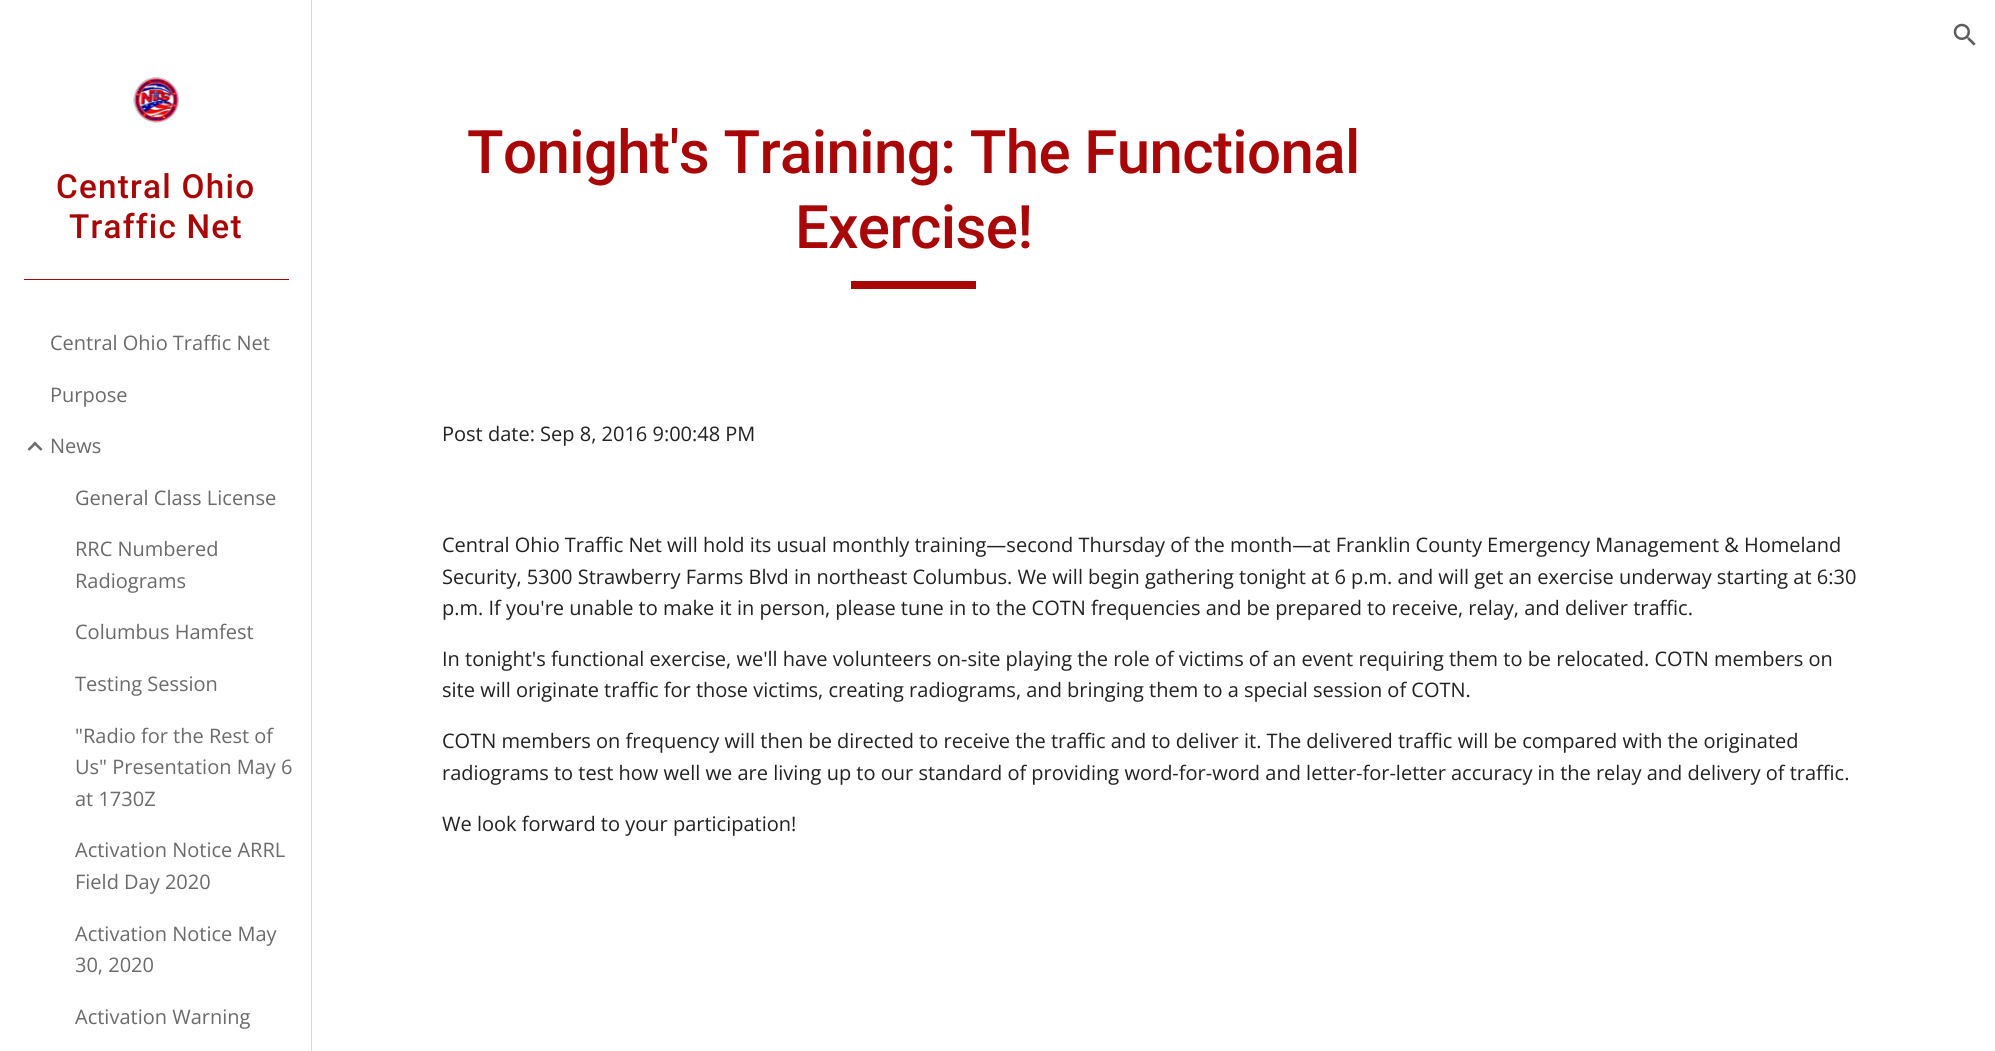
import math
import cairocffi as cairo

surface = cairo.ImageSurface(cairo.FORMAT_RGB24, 1995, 1051)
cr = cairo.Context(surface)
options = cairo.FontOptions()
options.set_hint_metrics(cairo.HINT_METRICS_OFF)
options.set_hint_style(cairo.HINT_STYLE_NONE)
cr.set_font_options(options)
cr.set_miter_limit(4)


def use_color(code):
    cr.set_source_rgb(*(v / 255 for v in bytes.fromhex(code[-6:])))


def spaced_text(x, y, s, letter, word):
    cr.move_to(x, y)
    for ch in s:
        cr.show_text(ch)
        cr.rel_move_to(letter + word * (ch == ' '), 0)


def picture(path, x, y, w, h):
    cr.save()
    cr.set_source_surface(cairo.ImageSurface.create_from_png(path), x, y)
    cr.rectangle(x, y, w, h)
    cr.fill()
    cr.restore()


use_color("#ffffff")
cr.paint()
picture("img1.png", 1953, 23, 23, 23)
use_color("#d9d9d9")
cr.rectangle(311, 0, 1, 1051)
cr.fill()
picture("img2.png", 133, 77, 46, 46)
cr.select_font_face("Roboto Medium")
cr.set_font_size(33.25)
use_color("#a90707")
spaced_text(56, 198, "Central Ohio", 1.25, 0)
spaced_text(69, 238, "Traffic Net", 1.25, 0)
cr.rectangle(24, 279, 265, 1)
cr.fill()
cr.select_font_face("Open Sans")
cr.set_font_size(20)
use_color("#6a6a6a")
cr.move_to(50, 350)
cr.show_text("Central Ohio Traffic Net")
cr.move_to(50, 402)
cr.show_text("Purpose")
picture("img3.png", 27, 441, 16, 10)
cr.move_to(50, 453)
cr.show_text("News")
cr.move_to(75, 505)
cr.show_text("General Class License")
cr.move_to(75, 556)
cr.show_text("RRC Numbered")
cr.move_to(75, 588)
cr.show_text("Radiograms")
cr.move_to(75, 639)
cr.show_text("Columbus Hamfest")
cr.move_to(75, 691)
cr.show_text("Testing Session")
cr.move_to(75, 743)
cr.show_text("\"Radio for the Rest of")
cr.move_to(75, 774)
cr.show_text("Us\" Presentation May 6")
cr.move_to(75, 806)
cr.show_text("at 1730Z")
cr.move_to(75, 857)
cr.show_text("Activation Notice ARRL")
cr.move_to(75, 889)
cr.show_text("Field Day 2020")
cr.move_to(75, 941)
cr.show_text("Activation Notice May")
cr.move_to(75, 972)
cr.show_text("30, 2020")
cr.move_to(75, 1024)
cr.show_text("Activation Warning")
cr.select_font_face("Roboto Medium")
cr.set_font_size(60)
use_color("#a90707")
spaced_text(467, 173, "Tonight's Training: The Functional", -0.6, 0)
spaced_text(795, 248, "Exercise!", -0.6, 0)
cr.rectangle(851, 281, 125, 8)
cr.fill()
cr.select_font_face("Open Sans")
cr.set_font_size(20)
use_color("#212121")
cr.move_to(442, 441)
cr.show_text("Post date: Sep 8, 2016 9:00:48 PM")
cr.move_to(442, 552)
cr.show_text("Central Ohio Traffic Net will hold its usual monthly training—second Thursday of the month—at Franklin County Emergency Management & Homeland")
cr.move_to(442, 584)
cr.show_text("Security, 5300 Strawberry Farms Blvd in northeast Columbus. We will begin gathering tonight at 6 p.m. and will get an exercise underway starting at 6:30")
cr.move_to(442, 615)
cr.show_text("p.m. If you're unable to make it in person, please tune in to the COTN frequencies and be prepared to receive, relay, and deliver traffic.")
cr.move_to(442, 666)
cr.show_text("In tonight's functional exercise, we'll have volunteers on-site playing the role of victims of an event requiring them to be relocated. COTN members on")
cr.move_to(442, 697)
cr.show_text("site will originate traffic for those victims, creating radiograms, and bringing them to a special session of COTN.")
cr.move_to(442, 748)
cr.show_text("COTN members on frequency will then be directed to receive the traffic and to deliver it. The delivered traffic will be compared with the originated")
cr.move_to(442, 780)
cr.show_text("radiograms to test how well we are living up to our standard of providing word-for-word and letter-for-letter accuracy in the relay and delivery of traffic.")
cr.move_to(442, 831)
cr.show_text("We look forward to your participation!")
surface.write_to_png("result.png")
